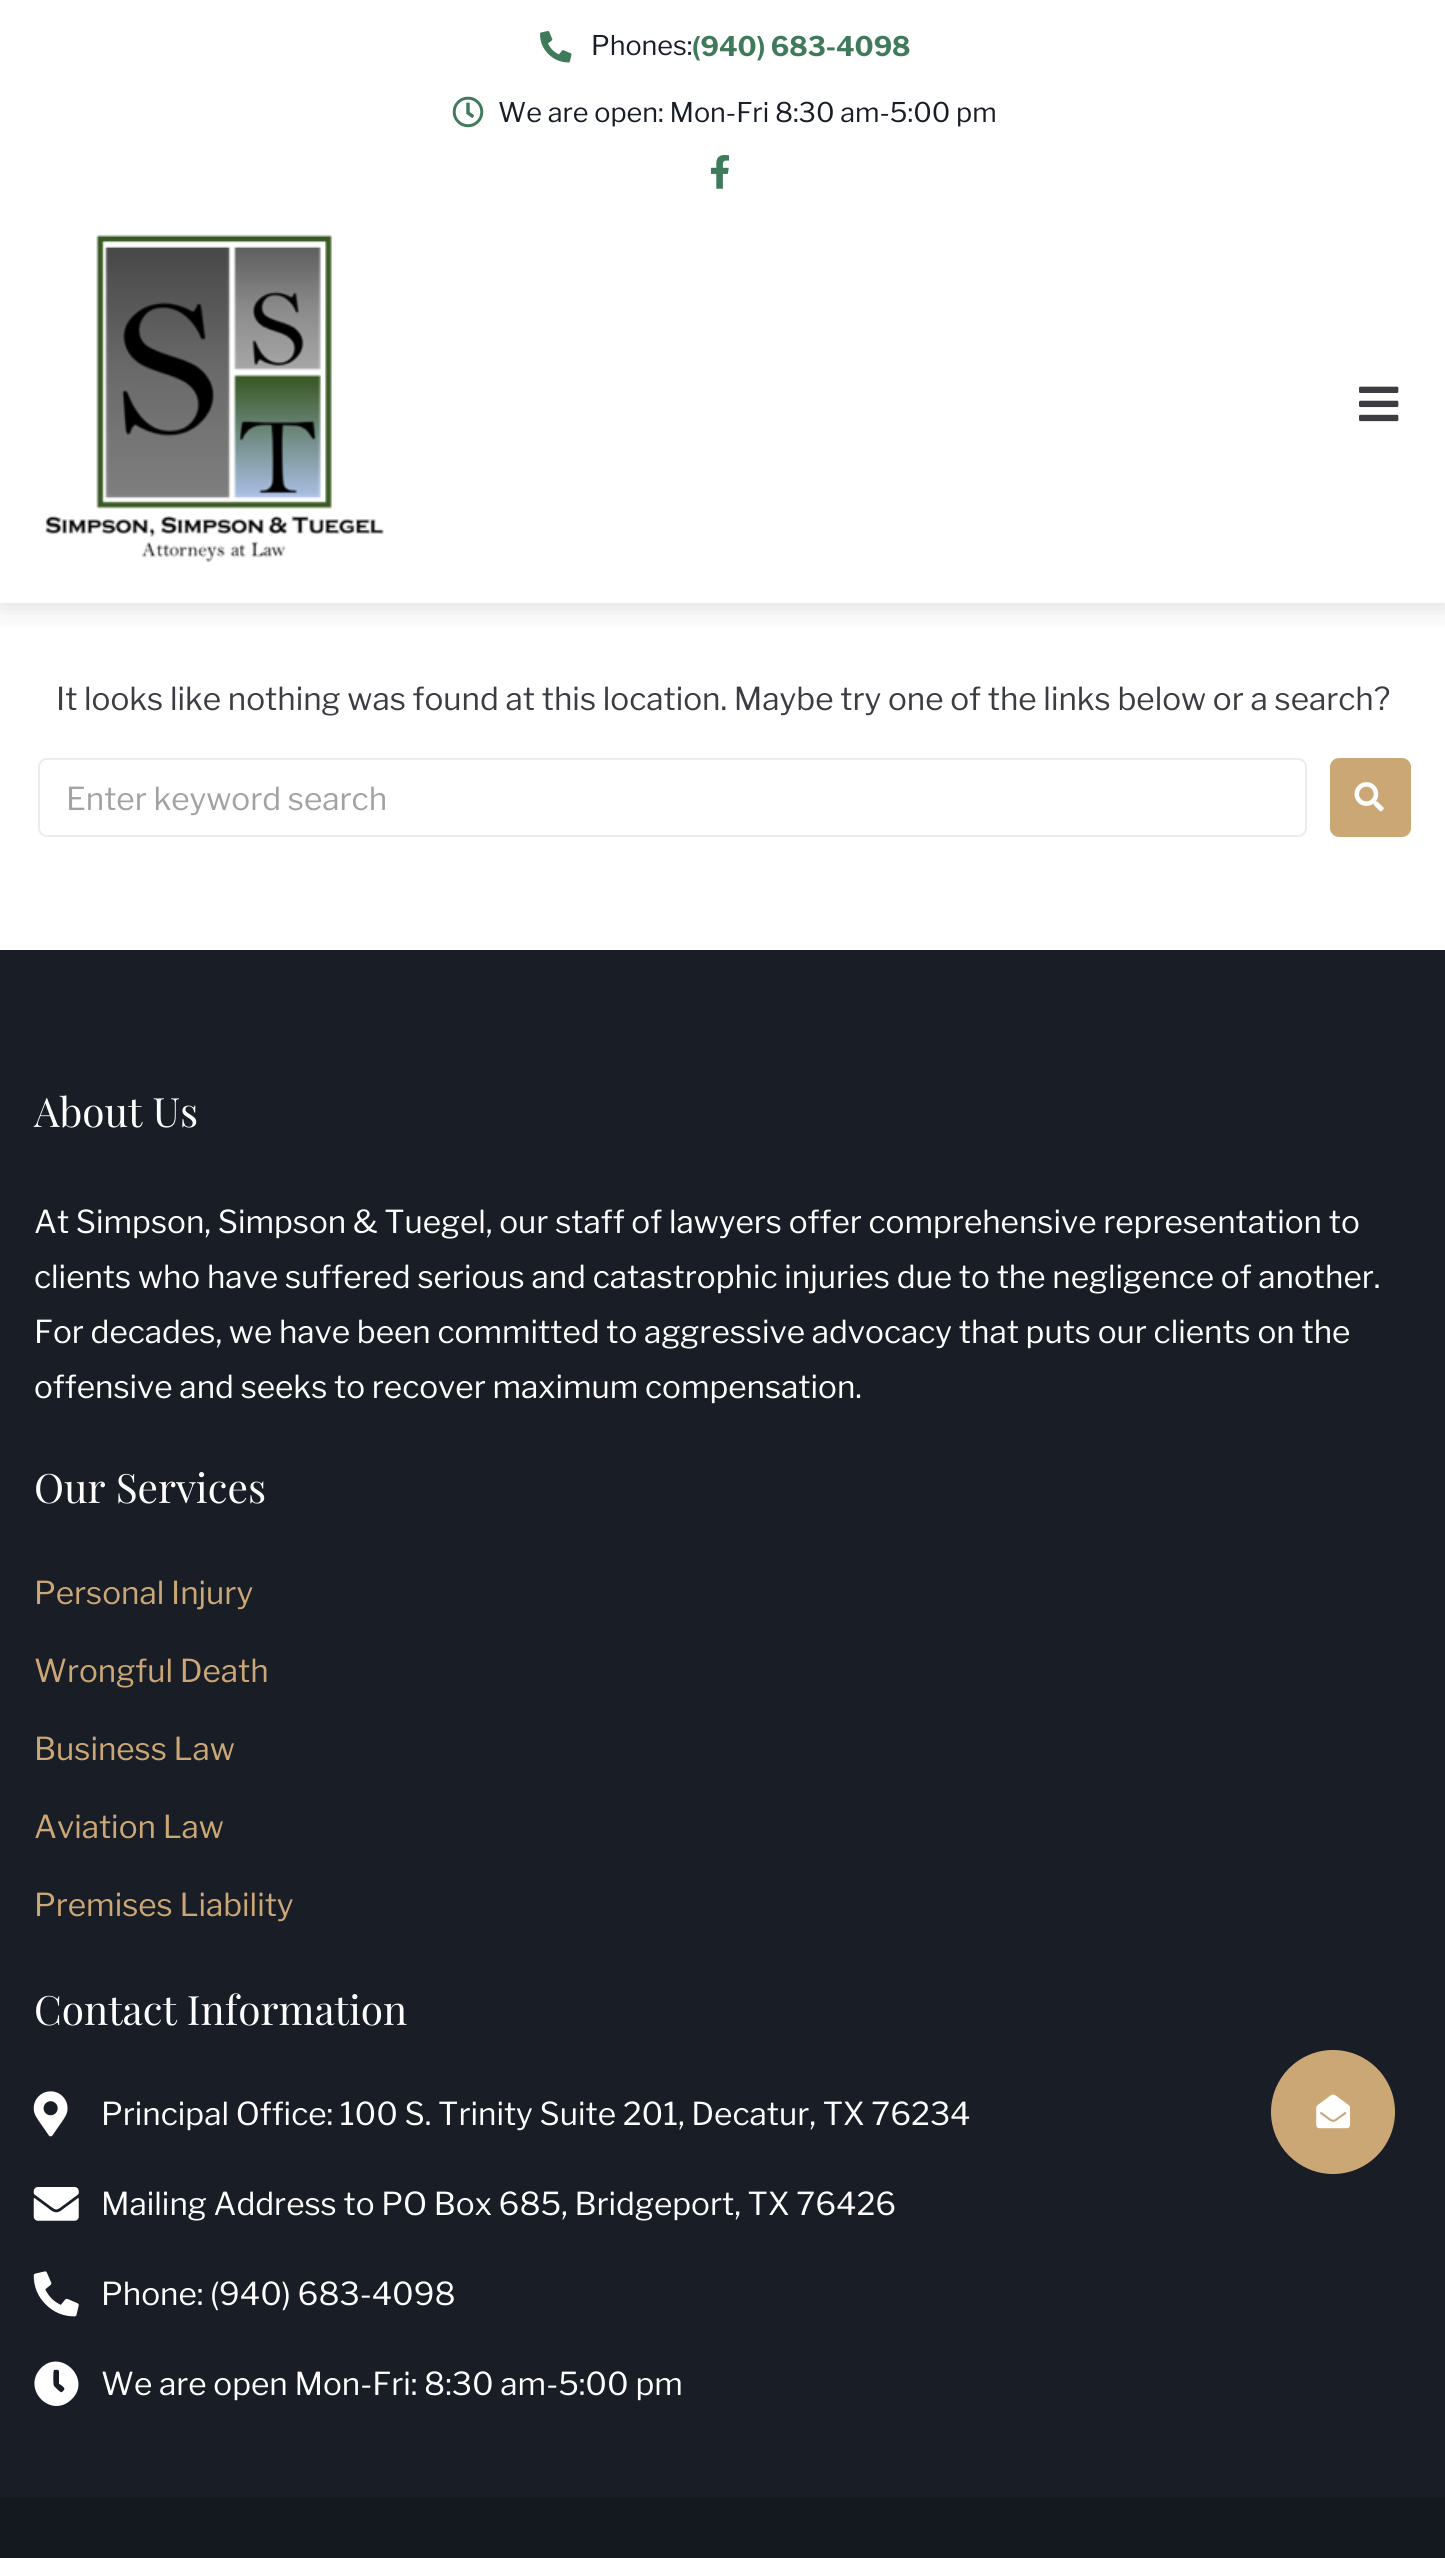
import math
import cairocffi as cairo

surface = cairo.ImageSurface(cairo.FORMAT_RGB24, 1445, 2558)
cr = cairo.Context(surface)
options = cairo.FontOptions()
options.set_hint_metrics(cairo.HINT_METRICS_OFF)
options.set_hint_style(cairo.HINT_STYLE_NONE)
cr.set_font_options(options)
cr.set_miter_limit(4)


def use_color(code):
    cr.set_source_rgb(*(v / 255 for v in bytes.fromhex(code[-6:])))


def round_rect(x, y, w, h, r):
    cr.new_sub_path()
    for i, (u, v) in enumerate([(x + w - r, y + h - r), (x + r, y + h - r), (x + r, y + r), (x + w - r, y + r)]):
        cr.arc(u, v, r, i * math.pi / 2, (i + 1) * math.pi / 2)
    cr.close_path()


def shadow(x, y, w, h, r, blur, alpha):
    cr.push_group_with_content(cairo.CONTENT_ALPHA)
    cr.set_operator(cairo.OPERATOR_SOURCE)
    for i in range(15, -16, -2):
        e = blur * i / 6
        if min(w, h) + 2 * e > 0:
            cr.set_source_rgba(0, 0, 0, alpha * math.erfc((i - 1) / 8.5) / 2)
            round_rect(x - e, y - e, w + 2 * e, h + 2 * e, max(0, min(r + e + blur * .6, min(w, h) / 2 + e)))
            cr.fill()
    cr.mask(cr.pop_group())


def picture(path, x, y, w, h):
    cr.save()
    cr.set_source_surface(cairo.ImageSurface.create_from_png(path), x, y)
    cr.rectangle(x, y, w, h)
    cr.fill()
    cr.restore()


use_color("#ffffff")
cr.paint()
cr.save()
cr.rectangle(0, 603, 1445, 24)
cr.clip()
use_color("#888888")
shadow(0, 194, 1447, 414, 0, 13.5, 0.26)
cr.restore()
use_color("#ffffff")
cr.rectangle(0, 175, 1445, 14)
cr.fill()
picture("img1.png", 540, 31, 32, 32)
cr.select_font_face("Libre Franklin")
cr.set_font_size(27)
use_color("#181d26")
cr.move_to(591, 55)
cr.show_text("Phones:")
cr.select_font_face("Libre Franklin", cairo.FONT_SLANT_NORMAL, cairo.FONT_WEIGHT_BOLD)
use_color("#3f7a5b")
cr.move_to(692, 56)
cr.show_text("(940) 683-4098")
picture("img2.png", 452, 96, 32, 32)
cr.select_font_face("Libre Franklin")
use_color("#181d26")
cr.move_to(498, 122)
cr.show_text("We are open: Mon-Fri 8:30 am-5:00 pm")
picture("img3.png", 710, 155, 20, 34)
picture("img4.png", 44, 234, 340, 328)
picture("img5.png", 1359, 386, 40, 36)
cr.set_font_size(31.5)
use_color("#3b3d42")
cr.move_to(56, 710)
cr.show_text("It looks like nothing was found at this location. Maybe try one of the links below or a search?")
round_rect(39, 759, 1267, 77, 8)
use_color("#ebeced")
cr.stroke()
use_color("#a1a2a4")
cr.move_to(66, 810)
cr.show_text("Enter keyword search")
use_color("#cca776")
round_rect(1330, 758, 81, 79, 9)
cr.fill()
picture("img6.png", 1354, 782, 30, 30)
use_color("#181d26")
cr.rectangle(0, 950, 1445, 1548)
cr.fill()
cr.select_font_face("Playfair Display")
cr.set_font_size(40.5)
use_color("#ffffff")
cr.move_to(34, 1127)
cr.show_text("About Us")
cr.select_font_face("Libre Franklin")
cr.set_font_size(31.5)
cr.move_to(34, 1233)
cr.show_text("At Simpson, Simpson & Tuegel, our staff of lawyers offer comprehensive representation to")
cr.move_to(34, 1288)
cr.show_text("clients who have suffered serious and catastrophic injuries due to the negligence of another.")
cr.move_to(34, 1343)
cr.show_text("For decades, we have been committed to aggressive advocacy that puts our clients on the")
cr.move_to(34, 1398)
cr.show_text("offensive and seeks to recover maximum compensation.")
cr.select_font_face("Playfair Display")
cr.set_font_size(40.5)
cr.move_to(34, 1503)
cr.show_text("Our Services")
cr.select_font_face("Libre Franklin")
cr.set_font_size(31.5)
use_color("#cca776")
cr.move_to(34, 1604)
cr.show_text("Personal Injury")
cr.move_to(34, 1682)
cr.show_text("Wrongful Death")
cr.move_to(34, 1760)
cr.show_text("Business Law")
cr.move_to(34, 1838)
cr.show_text("Aviation Law")
cr.move_to(34, 1916)
cr.show_text("Premises Liability")
cr.select_font_face("Playfair Display")
cr.set_font_size(40.5)
use_color("#ffffff")
cr.move_to(34, 2025)
cr.show_text("Contact Information")
picture("img7.png", 33, 2091, 35, 46)
cr.select_font_face("Libre Franklin")
cr.set_font_size(31.5)
cr.move_to(101, 2125)
cr.show_text("Principal Office: 100 S. Trinity Suite 201, Decatur, TX 76234")
picture("img8.png", 33, 2187, 46, 34)
cr.move_to(101, 2215)
cr.show_text("Mailing Address to PO Box 685, Bridgeport, TX 76426")
picture("img9.png", 33, 2271, 46, 46)
cr.move_to(101, 2305)
cr.show_text("Phone: (940) 683-4098")
cr.new_path()
cr.move_to(41, 2368)
cr.curve_to(61, 2348, 92, 2379, 72, 2399)
cr.curve_to(51, 2420, 21, 2389, 41, 2368)
cr.close_path()
cr.move_to(64, 2390)
cr.curve_to(66, 2388, 60, 2384, 59, 2384)
cr.line_to(59, 2371)
cr.curve_to(58, 2369, 55, 2370, 54, 2370)
cr.curve_to(53, 2371, 53, 2385, 54, 2386)
cr.line_to(58, 2390)
cr.curve_to(62, 2393, 61, 2393, 64, 2390)
cr.close_path()
cr.fill()
cr.move_to(101, 2395)
cr.show_text("We are open Mon-Fri: 8:30 am-5:00 pm")
use_color("#cca776")
cr.new_path()
cr.arc(1333, 2112, 62, 0, 2 * math.pi)
cr.fill()
picture("img10.png", 1316, 2094, 34, 35)
use_color("#141920")
cr.rectangle(0, 2498, 1445, 60)
cr.fill()
surface.write_to_png("result.png")
